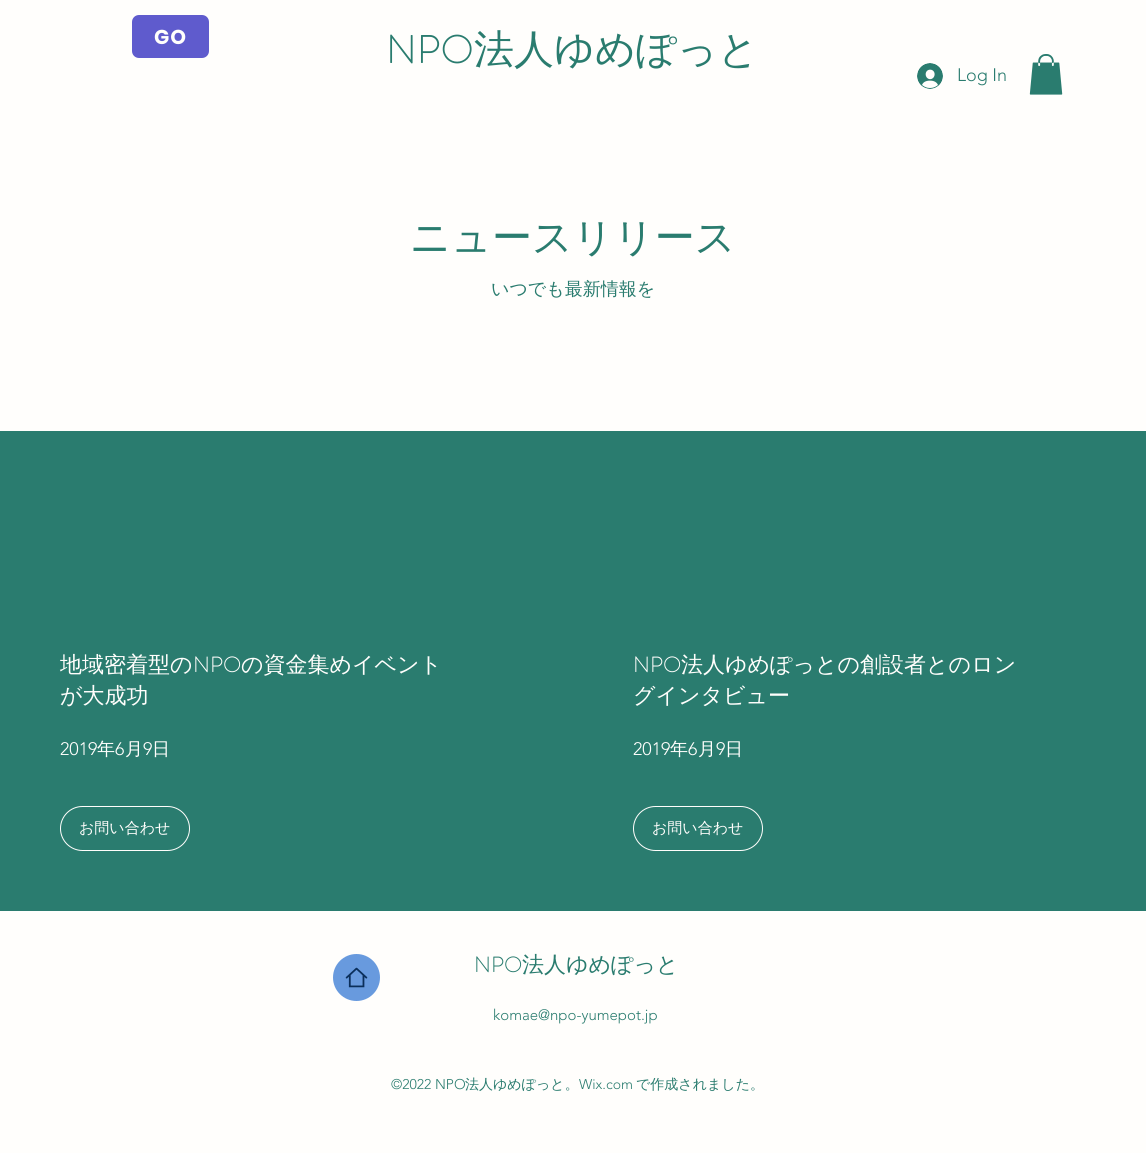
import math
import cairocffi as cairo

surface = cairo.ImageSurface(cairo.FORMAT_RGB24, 1146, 1153)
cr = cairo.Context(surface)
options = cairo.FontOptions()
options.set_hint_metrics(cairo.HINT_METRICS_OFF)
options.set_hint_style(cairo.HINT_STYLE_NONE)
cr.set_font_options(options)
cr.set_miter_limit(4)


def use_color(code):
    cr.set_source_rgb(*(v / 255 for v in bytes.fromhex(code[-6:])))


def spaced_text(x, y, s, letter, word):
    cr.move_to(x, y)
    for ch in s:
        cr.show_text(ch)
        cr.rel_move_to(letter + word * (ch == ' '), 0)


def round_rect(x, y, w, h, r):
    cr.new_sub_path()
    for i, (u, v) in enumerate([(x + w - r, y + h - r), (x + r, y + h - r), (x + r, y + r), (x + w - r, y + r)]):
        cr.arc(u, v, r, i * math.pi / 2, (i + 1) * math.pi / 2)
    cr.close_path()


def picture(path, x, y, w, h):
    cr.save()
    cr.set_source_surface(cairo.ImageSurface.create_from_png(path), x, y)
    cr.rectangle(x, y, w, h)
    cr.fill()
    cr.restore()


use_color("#fffefc")
cr.paint()
use_color("#5f5bcd")
round_rect(132, 15, 77, 43, 7)
cr.fill()
cr.select_font_face("Poppins", cairo.FONT_SLANT_NORMAL, cairo.FONT_WEIGHT_BOLD)
cr.set_font_size(20)
use_color("#fffefc")
spaced_text(154, 44, "GO", 1, 0)
cr.select_font_face("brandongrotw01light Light")
cr.set_font_size(40)
use_color("#2a7c6f")
cr.move_to(386, 63)
cr.show_text("NPO")
cr.select_font_face("WenQuanYi Zen Hei Medium")
cr.move_to(474, 63)
cr.show_text("法人ゆめぽっと")
picture("img1.png", 917, 63, 26, 26)
cr.select_font_face("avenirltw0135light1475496 Light")
cr.set_font_size(18)
cr.move_to(957, 81)
cr.show_text("Log In")
picture("img2.png", 1029, 54, 34, 41)
cr.select_font_face("WenQuanYi Zen Hei Medium")
cr.set_font_size(40)
cr.move_to(410, 251)
cr.show_text("ニュースリリース")
cr.set_font_size(18)
cr.move_to(491, 295)
cr.show_text("いつでも最新情報を")
cr.rectangle(0, 431, 1146, 480)
cr.fill()
cr.set_font_size(22)
use_color("#fffefc")
cr.move_to(60, 672)
cr.show_text("地域密着型の")
cr.select_font_face("brandongrotw01light Light")
cr.move_to(193, 672)
cr.show_text("NPO")
cr.select_font_face("WenQuanYi Zen Hei Medium")
cr.move_to(241, 672)
cr.show_text("の資金集めイベント")
cr.move_to(60, 703)
cr.show_text("が大成功")
cr.select_font_face("avenirltw0135light1475496 Light")
cr.set_font_size(18)
cr.move_to(60, 755)
cr.show_text("2019")
cr.select_font_face("WenQuanYi Zen Hei Medium")
cr.move_to(97, 755)
cr.show_text("年")
cr.select_font_face("avenirltw0135light1475496 Light")
cr.move_to(115, 755)
cr.show_text("6")
cr.select_font_face("WenQuanYi Zen Hei Medium")
cr.move_to(125, 755)
cr.show_text("月")
cr.select_font_face("avenirltw0135light1475496 Light")
cr.move_to(143, 755)
cr.show_text("9")
cr.select_font_face("WenQuanYi Zen Hei Medium")
cr.move_to(152, 755)
cr.show_text("日")
round_rect(60.5, 806.5, 129, 44, 22)
cr.set_line_width(1)
cr.stroke()
cr.set_font_size(15)
cr.move_to(79, 833)
cr.show_text("お問い合わせ")
cr.select_font_face("brandongrotw01light Light")
cr.set_font_size(22)
cr.move_to(633, 672)
cr.show_text("NPO")
cr.select_font_face("WenQuanYi Zen Hei Medium")
cr.move_to(681, 672)
cr.show_text("法人ゆめぽっとの創設者とのロン")
cr.move_to(633, 703)
cr.show_text("グインタビュー")
cr.select_font_face("avenirltw0135light1475496 Light")
cr.set_font_size(18)
cr.move_to(633, 755)
cr.show_text("2019")
cr.select_font_face("WenQuanYi Zen Hei Medium")
cr.move_to(670, 755)
cr.show_text("年")
cr.select_font_face("avenirltw0135light1475496 Light")
cr.move_to(688, 755)
cr.show_text("6")
cr.select_font_face("WenQuanYi Zen Hei Medium")
cr.move_to(698, 755)
cr.show_text("月")
cr.select_font_face("avenirltw0135light1475496 Light")
cr.move_to(716, 755)
cr.show_text("9")
cr.select_font_face("WenQuanYi Zen Hei Medium")
cr.move_to(725, 755)
cr.show_text("日")
round_rect(633.5, 806.5, 129, 44, 22)
cr.stroke()
cr.set_font_size(15)
cr.move_to(652, 833)
cr.show_text("お問い合わせ")
use_color("#689ade")
cr.new_path()
cr.arc(356.5, 977.5, 23.5, 0, 2 * math.pi)
cr.fill()
picture("img3.png", 345, 967, 23, 21)
cr.select_font_face("brandongrotw01light Light")
cr.set_font_size(22)
use_color("#2a7c6f")
cr.move_to(474, 972)
cr.show_text("NPO")
cr.select_font_face("WenQuanYi Zen Hei Medium")
cr.move_to(522, 972)
cr.show_text("法人ゆめぽっと")
cr.select_font_face("avenirltw0135light1475496 Light")
cr.set_font_size(15)
cr.move_to(493, 1020)
cr.show_text("komae@npo-yumepot.jp")
cr.set_font_size(14)
cr.move_to(391, 1089)
cr.show_text("©2022 NPO")
cr.select_font_face("WenQuanYi Zen Hei Medium")
cr.move_to(465, 1089)
cr.show_text("法人ゆめぽっと。")
cr.select_font_face("avenirltw0135light1475496 Light")
cr.move_to(579, 1089)
cr.show_text("Wix.com")
cr.select_font_face("WenQuanYi Zen Hei Medium")
cr.move_to(636, 1089)
cr.show_text("で作成されました。")
surface.write_to_png("result.png")
